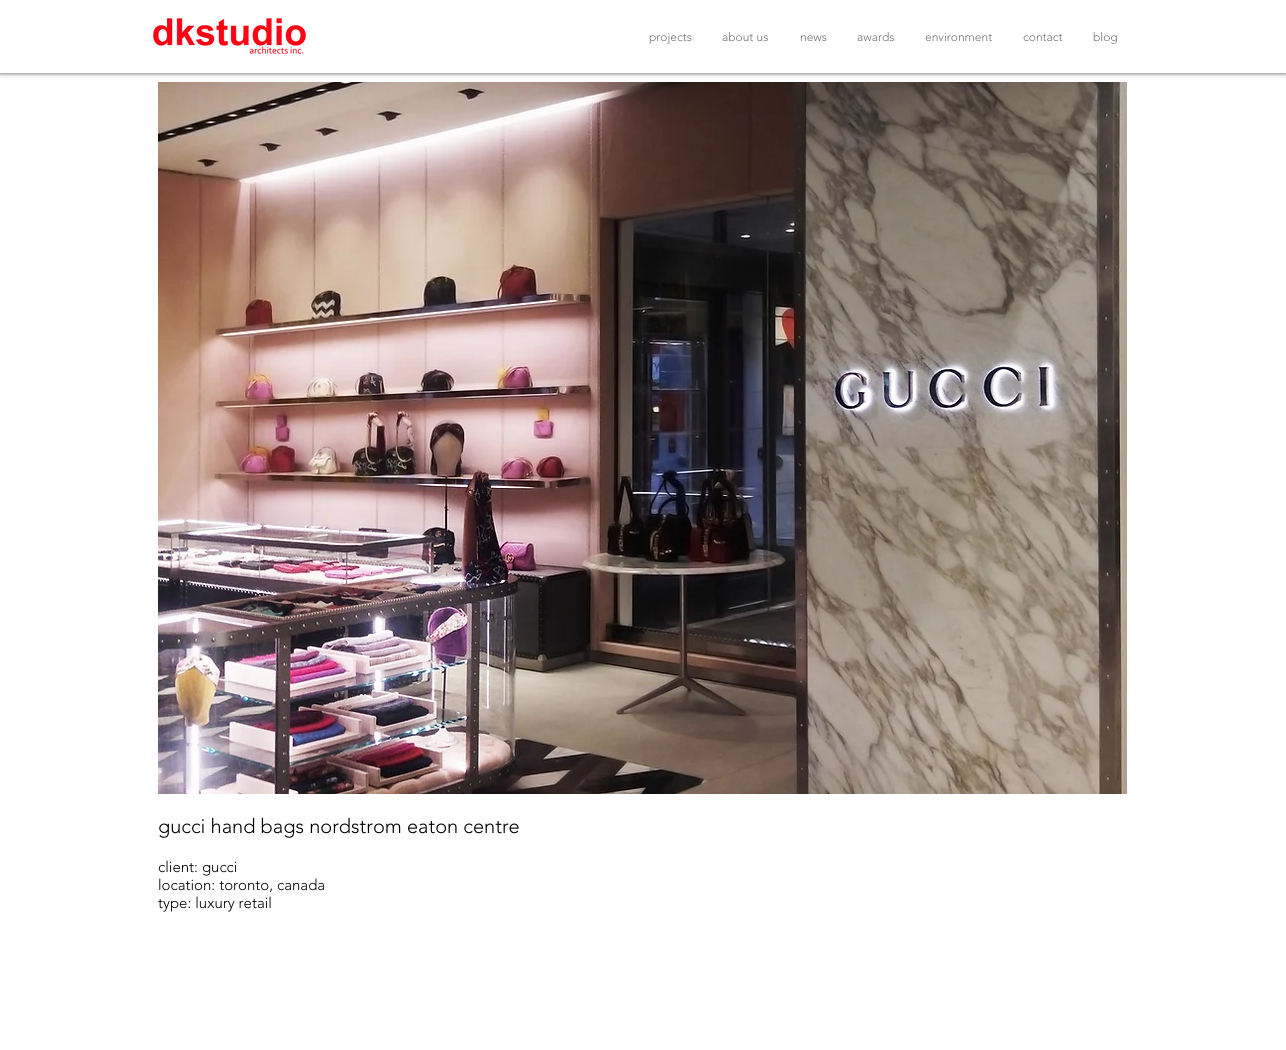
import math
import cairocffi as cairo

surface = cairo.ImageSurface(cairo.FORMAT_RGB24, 1286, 1050)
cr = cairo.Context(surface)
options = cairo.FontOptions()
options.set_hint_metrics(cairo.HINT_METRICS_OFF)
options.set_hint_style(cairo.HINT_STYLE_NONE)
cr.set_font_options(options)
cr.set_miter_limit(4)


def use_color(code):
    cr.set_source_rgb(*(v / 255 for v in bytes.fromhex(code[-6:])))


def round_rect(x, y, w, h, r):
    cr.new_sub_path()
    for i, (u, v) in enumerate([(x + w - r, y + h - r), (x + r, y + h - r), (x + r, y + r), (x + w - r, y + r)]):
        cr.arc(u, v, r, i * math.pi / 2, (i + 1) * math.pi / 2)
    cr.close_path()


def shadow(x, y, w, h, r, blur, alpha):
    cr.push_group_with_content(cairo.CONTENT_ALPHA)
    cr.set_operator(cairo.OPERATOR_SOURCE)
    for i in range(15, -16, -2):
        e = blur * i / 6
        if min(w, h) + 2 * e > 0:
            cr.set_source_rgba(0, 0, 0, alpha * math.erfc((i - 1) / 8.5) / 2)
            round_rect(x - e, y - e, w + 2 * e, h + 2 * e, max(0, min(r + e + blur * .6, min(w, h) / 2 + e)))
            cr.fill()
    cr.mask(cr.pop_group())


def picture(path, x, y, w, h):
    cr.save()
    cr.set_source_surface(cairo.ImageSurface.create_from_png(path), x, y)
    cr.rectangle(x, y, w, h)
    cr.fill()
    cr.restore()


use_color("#ffffff")
cr.paint()
cr.save()
cr.rectangle(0, 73, 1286, 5)
cr.clip()
use_color("#000000")
shadow(0, 0, 1286, 73, 0, 2.5, 0.7)
cr.restore()
picture("img1.png", 153, 18, 153, 36)
cr.select_font_face("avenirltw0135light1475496 Light")
cr.set_font_size(12)
use_color("#717070")
cr.move_to(649, 41)
cr.show_text("projects")
cr.move_to(722, 41)
cr.show_text("about us")
cr.move_to(800, 41)
cr.show_text("news")
cr.move_to(857, 41)
cr.show_text("awards")
cr.move_to(925, 41)
cr.show_text("environment")
cr.move_to(1023, 41)
cr.show_text("contact")
cr.move_to(1093, 41)
cr.show_text("blog")
picture("img2.png", 158, 82, 969, 712)
cr.set_font_size(20)
use_color("#000000")
cr.move_to(158, 833)
cr.show_text("gucci hand bags nordstrom eaton centre")
cr.set_font_size(15)
cr.move_to(158, 872)
cr.show_text("client: gucci")
cr.move_to(158, 890)
cr.show_text("location: toronto, canada")
cr.move_to(158, 908)
cr.show_text("type: luxury retail")
surface.write_to_png("result.png")
